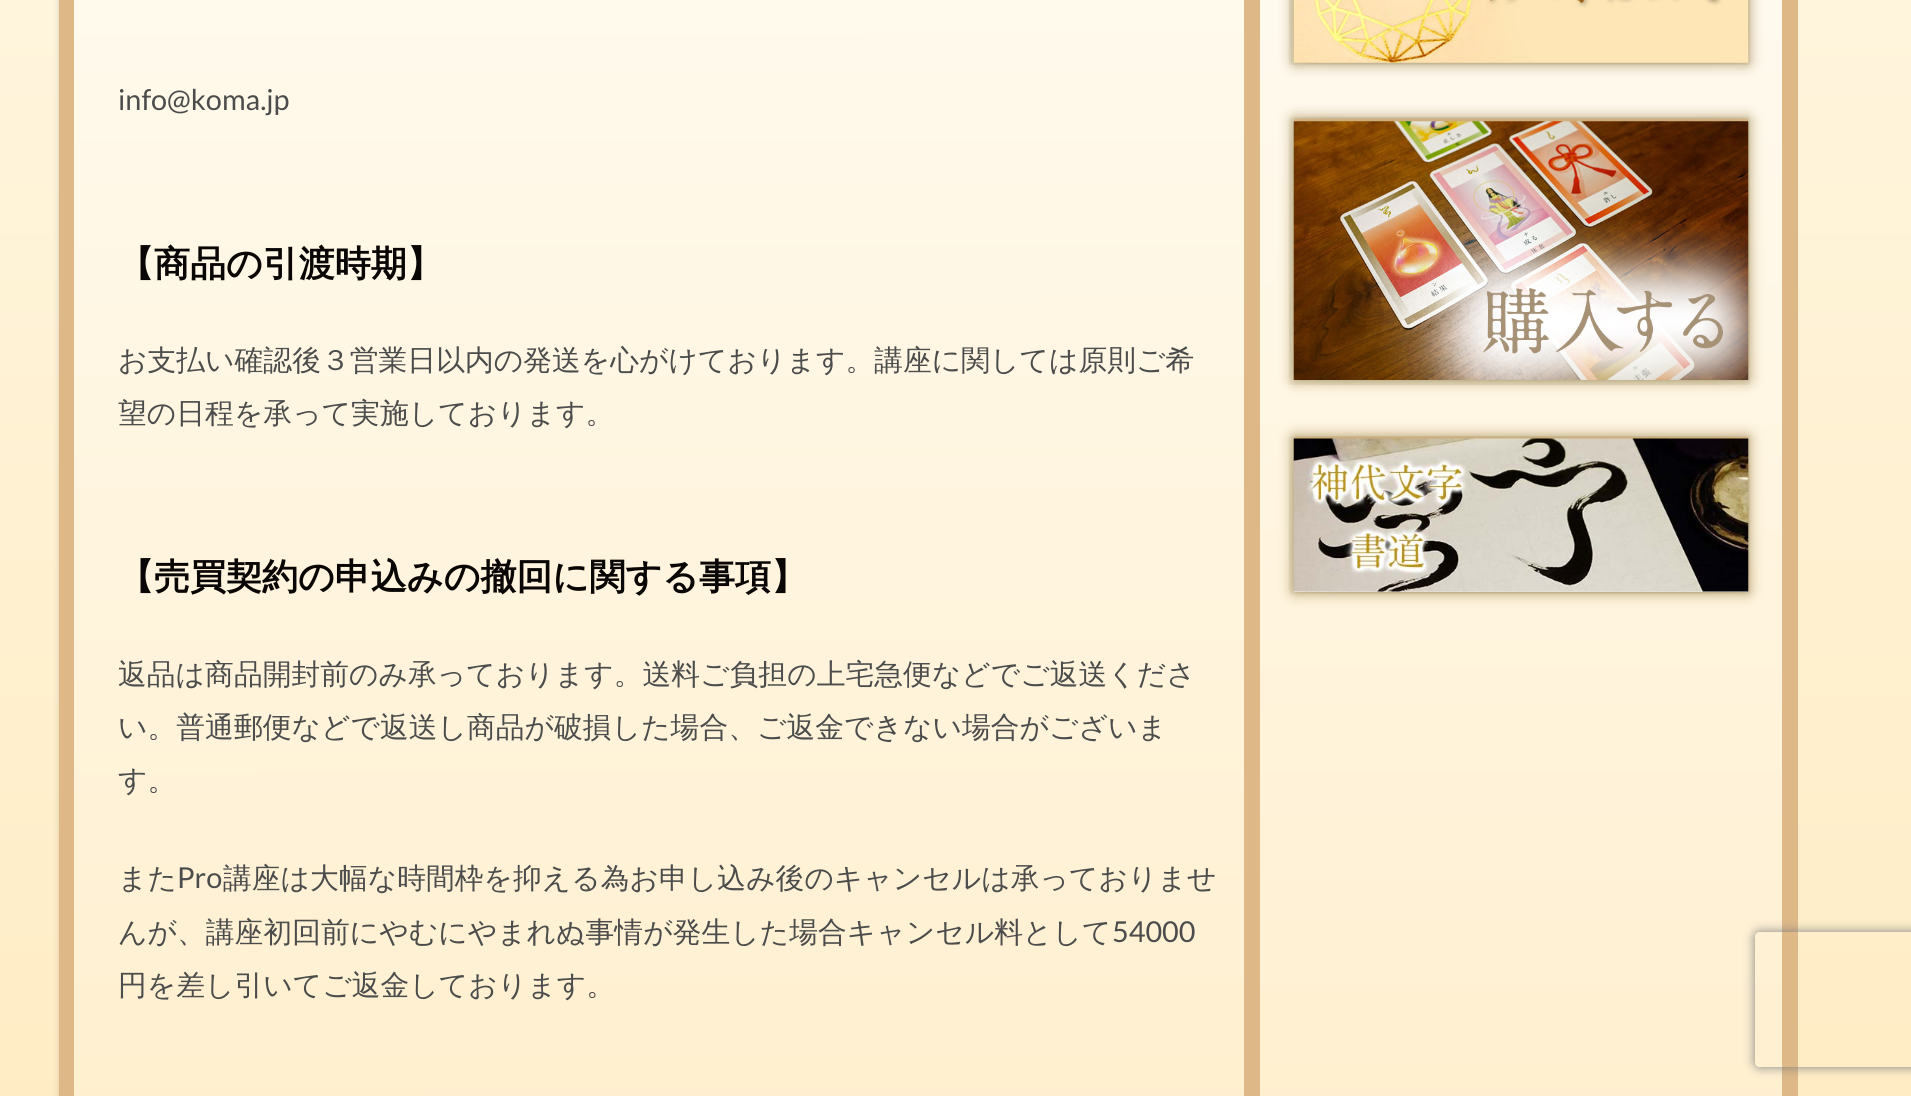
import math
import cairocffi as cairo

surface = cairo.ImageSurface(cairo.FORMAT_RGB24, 1911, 1096)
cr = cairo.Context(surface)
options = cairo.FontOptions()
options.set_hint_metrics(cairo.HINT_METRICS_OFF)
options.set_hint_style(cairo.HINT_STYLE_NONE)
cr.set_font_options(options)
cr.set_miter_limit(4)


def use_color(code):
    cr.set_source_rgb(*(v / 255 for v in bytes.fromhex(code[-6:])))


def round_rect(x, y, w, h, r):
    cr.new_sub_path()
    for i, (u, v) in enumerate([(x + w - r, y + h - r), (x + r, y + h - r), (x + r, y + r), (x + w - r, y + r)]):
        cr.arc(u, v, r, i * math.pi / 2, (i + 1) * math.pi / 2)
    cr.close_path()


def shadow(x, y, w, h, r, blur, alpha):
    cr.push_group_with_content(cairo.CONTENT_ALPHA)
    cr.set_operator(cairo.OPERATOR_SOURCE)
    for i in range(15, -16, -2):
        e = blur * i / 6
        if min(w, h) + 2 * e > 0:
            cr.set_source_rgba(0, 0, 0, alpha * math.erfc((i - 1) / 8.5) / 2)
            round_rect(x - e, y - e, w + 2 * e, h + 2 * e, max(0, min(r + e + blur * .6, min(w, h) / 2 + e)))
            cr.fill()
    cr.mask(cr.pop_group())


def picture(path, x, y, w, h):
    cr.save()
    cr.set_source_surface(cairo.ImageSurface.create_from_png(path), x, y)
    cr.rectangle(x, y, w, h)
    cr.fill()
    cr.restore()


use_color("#ffffff")
cr.paint()
gradient = cairo.LinearGradient(956, -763, 956, 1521)
gradient.add_color_stop_rgba(0, 1, 0.984, 0.929, 1)
gradient.add_color_stop_rgba(1, 1, 0.914, 0.737, 1)
cr.set_source(gradient)
cr.rectangle(0, 0, 1911, 1096)
cr.fill()
use_color("#000000")
shadow(59, -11, 1224, 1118, 0, 3.5, 0.15)
gradient = cairo.LinearGradient(670, -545, 671, 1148)
gradient.add_color_stop_rgba(0, 1, 1, 0.984, 1)
gradient.add_color_stop_rgba(1, 1, 0.937, 0.808, 1)
cr.set_source(gradient)
cr.rectangle(74, 0, 1170, 1096)
cr.fill()
use_color("#deb887")
cr.rectangle(59, 0, 15, 1096)
cr.fill()
cr.select_font_face("Lato")
cr.set_font_size(28.8)
use_color("#4c4c4c")
cr.move_to(118, 110)
cr.show_text("info@koma.jp")
cr.select_font_face("WenQuanYi Zen Hei", cairo.FONT_SLANT_NORMAL, cairo.FONT_WEIGHT_BOLD)
cr.set_font_size(36)
use_color("#0a0606")
cr.move_to(118, 276)
cr.show_text("【商品の引渡時期】")
cr.select_font_face("WenQuanYi Zen Hei Medium")
cr.set_font_size(28.8)
use_color("#4c4c4c")
cr.move_to(118, 370)
cr.show_text("お支払い確認後３営業日以内の発送を心がけております。講座に関しては原則ご希")
cr.move_to(118, 423)
cr.show_text("望の日程を承って実施しております。")
cr.select_font_face("WenQuanYi Zen Hei", cairo.FONT_SLANT_NORMAL, cairo.FONT_WEIGHT_BOLD)
cr.set_font_size(36)
use_color("#0a0606")
cr.move_to(118, 589)
cr.show_text("【売買契約の申込みの撤回に関する事項】")
cr.select_font_face("WenQuanYi Zen Hei Medium")
cr.set_font_size(28.8)
use_color("#4c4c4c")
cr.move_to(118, 684)
cr.show_text("返品は商品開封前のみ承っております。送料ご負担の上宅急便などでご返送くださ")
cr.move_to(118, 737)
cr.show_text("い。普通郵便などで返送し商品が破損した場合、ご返金できない場合がございま")
cr.move_to(118, 790)
cr.show_text("す。")
cr.move_to(118, 888)
cr.show_text("また")
cr.select_font_face("Lato")
cr.move_to(177, 888)
cr.show_text("Pro")
cr.select_font_face("WenQuanYi Zen Hei Medium")
cr.move_to(223, 888)
cr.show_text("講座は大幅な時間枠を抑える為お申し込み後のキャンセルは承っておりませ")
cr.move_to(118, 942)
cr.show_text("んが、講座初回前にやむにやまれぬ事情が発生した場合キャンセル料として")
cr.select_font_face("Lato")
cr.move_to(1112, 942)
cr.show_text("54000")
cr.select_font_face("WenQuanYi Zen Hei Medium")
cr.move_to(118, 995)
cr.show_text("円を差し引いてご返金しております。")
gradient = cairo.LinearGradient(1521, -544, 1521, 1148)
gradient.add_color_stop_rgba(0, 1, 1, 0.996, 1)
gradient.add_color_stop_rgba(1, 1, 0.937, 0.808, 1)
cr.set_source(gradient)
cr.rectangle(1260, 0, 522, 1096)
cr.fill()
use_color("#deb887")
cr.rectangle(1782, 0, 16, 1096)
cr.fill()
cr.rectangle(1244, 0, 16, 1096)
cr.fill()
use_color("#a58c5a")
shadow(1294, -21, 454, 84, 0, 7, 1)
picture("img1.png", 1289, 0, 461, 65)
shadow(1294, 119, 454, 261, 0, 7, 1)
use_color("#deb887")
cr.rectangle(1294, 119, 454, 2)
cr.fill()
picture("img2.png", 1289, 117, 461, 268)
use_color("#a58c5a")
shadow(1294, 437, 454, 155, 0, 7, 1)
use_color("#fffdf4")
cr.rectangle(1294, 591, 454, 1)
cr.fill()
use_color("#deb887")
cr.rectangle(1294, 437, 454, 2)
cr.fill()
picture("img3.png", 1289, 436, 461, 158)
cr.save()
cr.set_fill_rule(cairo.FILL_RULE_EVEN_ODD)
cr.new_path()
cr.move_to(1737, 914)
cr.line_to(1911, 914)
cr.line_to(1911, 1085)
cr.line_to(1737, 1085)
cr.close_path()
cr.move_to(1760, 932)
cr.line_to(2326, 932)
cr.curve_to(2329, 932, 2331, 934, 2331, 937)
cr.line_to(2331, 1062)
cr.curve_to(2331, 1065, 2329, 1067, 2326, 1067)
cr.line_to(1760, 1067)
cr.curve_to(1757, 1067, 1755, 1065, 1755, 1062)
cr.line_to(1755, 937)
cr.curve_to(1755, 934, 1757, 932, 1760, 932)
cr.close_path()
cr.clip()
use_color("#808080")
shadow(1755, 932, 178, 135, 5, 5.5, 1)
cr.restore()
surface.write_to_png("result.png")
